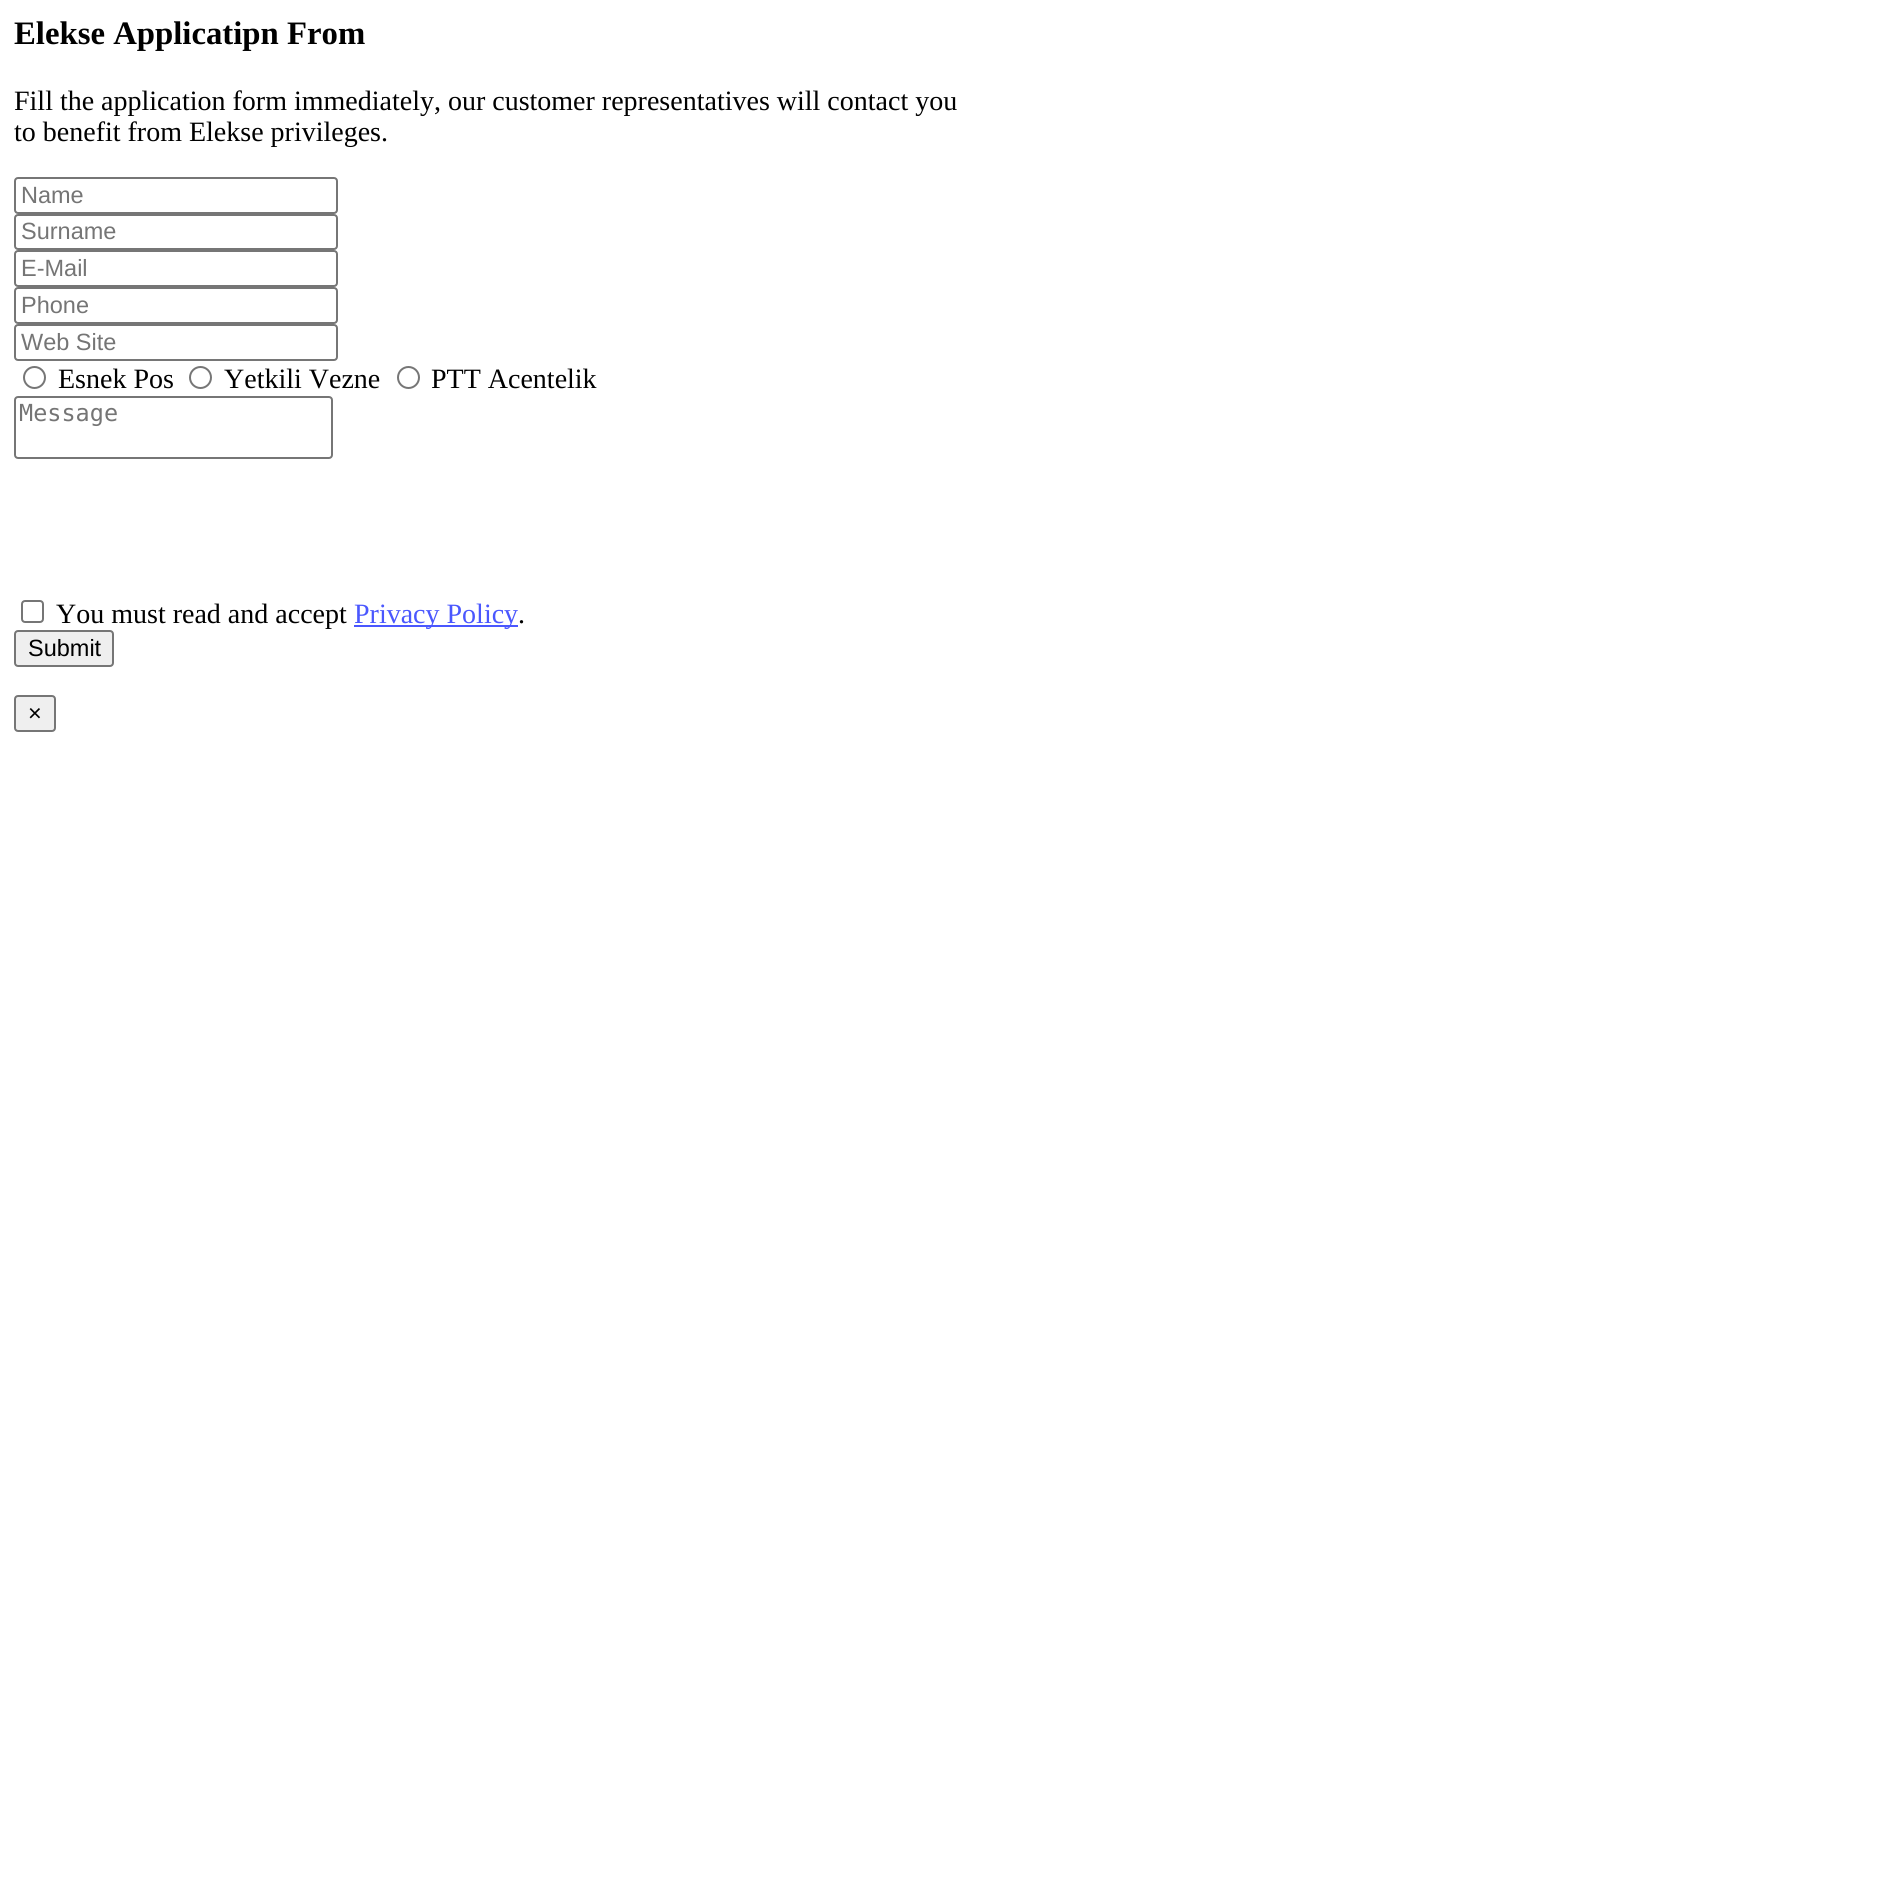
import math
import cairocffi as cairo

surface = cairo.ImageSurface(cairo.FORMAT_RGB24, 1897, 1889)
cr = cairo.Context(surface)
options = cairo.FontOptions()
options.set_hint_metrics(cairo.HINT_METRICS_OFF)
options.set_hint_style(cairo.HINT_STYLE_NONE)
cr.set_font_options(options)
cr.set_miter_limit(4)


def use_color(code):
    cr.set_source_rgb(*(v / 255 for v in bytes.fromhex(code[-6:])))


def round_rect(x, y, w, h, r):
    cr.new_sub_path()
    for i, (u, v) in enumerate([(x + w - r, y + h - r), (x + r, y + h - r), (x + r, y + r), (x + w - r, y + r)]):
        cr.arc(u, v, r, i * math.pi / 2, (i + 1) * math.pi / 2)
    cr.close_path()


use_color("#ffffff")
cr.paint()
cr.select_font_face("Liberation Serif", cairo.FONT_SLANT_NORMAL, cairo.FONT_WEIGHT_BOLD)
cr.set_font_size(32.75)
use_color("#000000")
cr.move_to(14, 44)
cr.show_text("Elekse Applicatipn From")
cr.select_font_face("Liberation Serif")
cr.set_font_size(28)
cr.move_to(14, 110)
cr.show_text("Fill the application form immediately, our customer representatives will contact you")
cr.move_to(14, 141)
cr.show_text("to benefit from Elekse privileges.")
round_rect(15, 178, 322, 35, 3)
use_color("#767676")
cr.stroke()
cr.select_font_face("Liberation Sans")
cr.set_font_size(23.5)
use_color("#757575")
cr.move_to(21, 203)
cr.show_text("Name")
round_rect(15, 215, 322, 34, 3)
use_color("#767676")
cr.stroke()
use_color("#757575")
cr.move_to(21, 239)
cr.show_text("Surname")
round_rect(15, 251, 322, 35, 3)
use_color("#767676")
cr.stroke()
use_color("#757575")
cr.move_to(21, 276)
cr.show_text("E-Mail")
round_rect(15, 288, 322, 35, 3)
use_color("#767676")
cr.stroke()
use_color("#757575")
cr.move_to(21, 313)
cr.show_text("Phone")
round_rect(15, 325, 322, 35, 3)
use_color("#767676")
cr.stroke()
use_color("#757575")
cr.move_to(21, 350)
cr.show_text("Web Site")
cr.new_path()
cr.arc(34.5, 377.5, 10.5, 0, 2 * math.pi)
use_color("#767676")
cr.stroke()
cr.select_font_face("Liberation Serif")
cr.set_font_size(28)
use_color("#000000")
cr.move_to(58, 388)
cr.show_text("Esnek Pos")
cr.new_path()
cr.arc(200.5, 377.5, 10.5, 0, 2 * math.pi)
use_color("#767676")
cr.stroke()
use_color("#000000")
cr.move_to(224, 388)
cr.show_text("Yetkili Vezne")
cr.new_path()
cr.arc(408.5, 377.5, 10.5, 0, 2 * math.pi)
use_color("#767676")
cr.stroke()
use_color("#000000")
cr.move_to(431, 388)
cr.show_text("PTT Acentelik")
round_rect(15, 397, 317, 61, 3)
use_color("#767676")
cr.stroke()
cr.select_font_face("DejaVu Sans Mono")
cr.set_font_size(23.5)
use_color("#757575")
cr.move_to(19, 421)
cr.show_text("Message")
round_rect(22, 601, 21, 21, 3)
use_color("#767676")
cr.stroke()
cr.select_font_face("Liberation Serif")
cr.set_font_size(28)
use_color("#000000")
cr.move_to(56, 623)
cr.show_text("You must read and accept")
use_color("#4a57fe")
cr.rectangle(354, 625, 164, 2)
cr.fill()
cr.move_to(354, 623)
cr.show_text("Privacy Policy")
use_color("#000000")
cr.move_to(518, 623)
cr.show_text(".")
use_color("#efefef")
round_rect(15, 631, 98, 35, 3)
cr.fill_preserve()
use_color("#767676")
cr.stroke()
cr.select_font_face("Liberation Sans")
cr.set_font_size(23.5)
use_color("#000000")
cr.move_to(28, 656)
cr.show_text("Submit")
use_color("#efefef")
round_rect(15, 696, 40, 35, 3)
cr.fill_preserve()
use_color("#767676")
cr.stroke()
use_color("#000000")
cr.move_to(28, 721)
cr.show_text("×")
surface.write_to_png("result.png")
